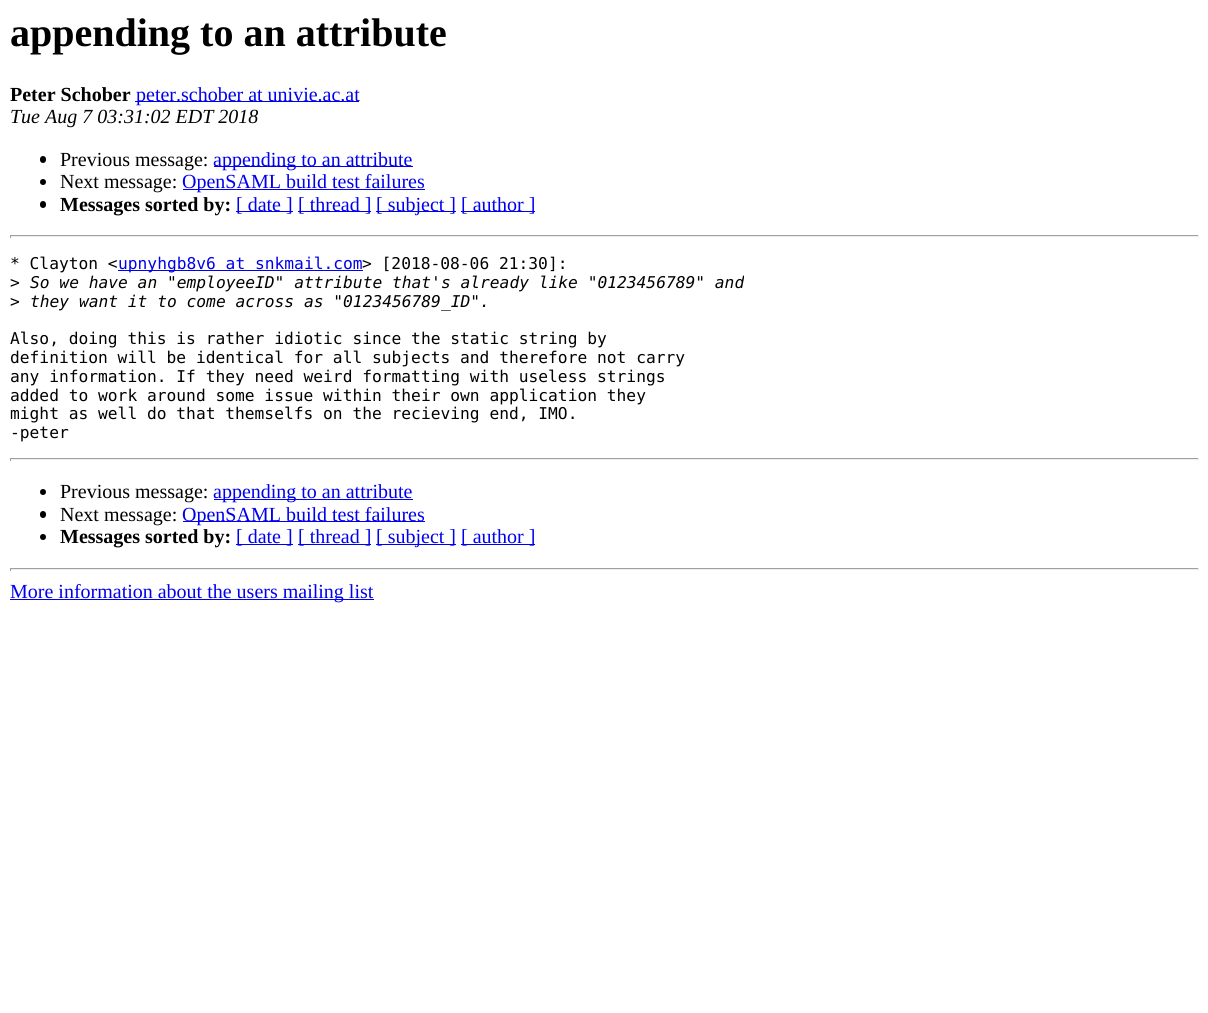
import math
import cairocffi as cairo

surface = cairo.ImageSurface(cairo.FORMAT_RGB24, 1208, 1013)
cr = cairo.Context(surface)
options = cairo.FontOptions()
options.set_hint_metrics(cairo.HINT_METRICS_OFF)
options.set_hint_style(cairo.HINT_STYLE_NONE)
cr.set_font_options(options)
cr.set_miter_limit(4)


def use_color(code):
    cr.set_source_rgb(*(v / 255 for v in bytes.fromhex(code[-6:])))


def round_rect(x, y, w, h, r):
    cr.new_sub_path()
    for i, (u, v) in enumerate([(x + w - r, y + h - r), (x + r, y + h - r), (x + r, y + r), (x + w - r, y + r)]):
        cr.arc(u, v, r, i * math.pi / 2, (i + 1) * math.pi / 2)
    cr.close_path()


use_color("#ffffff")
cr.paint()
cr.select_font_face("Liberation Serif", cairo.FONT_SLANT_NORMAL, cairo.FONT_WEIGHT_BOLD)
cr.set_font_size(40)
use_color("#000000")
cr.move_to(10, 46)
cr.show_text("appending to an attribute")
cr.set_font_size(20)
cr.move_to(10, 101)
cr.show_text("Peter Schober")
use_color("#0000ee")
cr.rectangle(135, 101, 224, 1)
cr.fill()
cr.select_font_face("Liberation Serif")
cr.move_to(136, 101)
cr.show_text("peter.schober at univie.ac.at")
cr.select_font_face("Liberation Serif", cairo.FONT_SLANT_ITALIC)
use_color("#000000")
cr.move_to(10, 123)
cr.show_text("Tue Aug 7 03:31:02 EDT 2018")
round_rect(40, 156, 6, 7, 3)
cr.fill()
cr.select_font_face("Liberation Serif")
cr.move_to(60, 166)
cr.show_text("Previous message:")
use_color("#0000ee")
cr.rectangle(214, 166, 199, 1)
cr.fill()
cr.move_to(213, 166)
cr.show_text("appending to an attribute")
use_color("#000000")
cr.new_path()
cr.arc(43, 182, 3, 0, 2 * math.pi)
cr.fill()
cr.move_to(60, 188)
cr.show_text("Next message:")
use_color("#0000ee")
cr.rectangle(183, 189, 242, 1)
cr.fill()
cr.move_to(182, 188)
cr.show_text("OpenSAML build test failures")
use_color("#000000")
round_rect(40, 201, 6, 7, 3)
cr.fill()
cr.select_font_face("Liberation Serif", cairo.FONT_SLANT_NORMAL, cairo.FONT_WEIGHT_BOLD)
cr.move_to(60, 211)
cr.show_text("Messages sorted by:")
use_color("#0000ee")
cr.rectangle(236, 211, 57, 1)
cr.fill()
cr.select_font_face("Liberation Serif")
cr.move_to(236, 211)
cr.show_text("[ date ]")
cr.rectangle(298, 211, 73, 1)
cr.fill()
cr.move_to(298, 211)
cr.show_text("[ thread ]")
cr.rectangle(376, 211, 80, 1)
cr.fill()
cr.move_to(376, 211)
cr.show_text("[ subject ]")
cr.rectangle(461, 211, 74, 1)
cr.fill()
cr.move_to(461, 211)
cr.show_text("[ author ]")
use_color("#9f9f9f")
cr.rectangle(10, 235, 1189, 1)
cr.fill()
use_color("#eeeeee")
cr.rectangle(1198, 235, 1, 3)
cr.fill()
cr.rectangle(10, 236, 1189, 1)
cr.fill()
use_color("#9f9f9f")
cr.rectangle(10, 235, 1, 3)
cr.fill()
cr.select_font_face("DejaVu Sans Mono")
cr.set_font_size(16.25)
use_color("#000000")
cr.move_to(10, 269)
cr.show_text("* Clayton <")
use_color("#0000ee")
cr.rectangle(118, 270, 245, 1)
cr.fill()
cr.move_to(118, 269)
cr.show_text("upnyhgb8v6 at snkmail.com")
use_color("#000000")
cr.move_to(362, 269)
cr.show_text("> [2018-08-06 21:30]:")
cr.move_to(10, 288)
cr.show_text(">")
cr.select_font_face("DejaVu Sans Mono", cairo.FONT_SLANT_ITALIC)
cr.move_to(30, 288)
cr.show_text("So we have an \"employeeID\" attribute that's already like \"0123456789\" and")
cr.select_font_face("DejaVu Sans Mono")
cr.move_to(10, 307)
cr.show_text(">")
cr.select_font_face("DejaVu Sans Mono", cairo.FONT_SLANT_ITALIC)
cr.move_to(30, 307)
cr.show_text("they want it to come across as \"0123456789_ID\".")
cr.select_font_face("DejaVu Sans Mono")
cr.move_to(10, 344)
cr.show_text("Also, doing this is rather idiotic since the static string by")
cr.move_to(10, 363)
cr.show_text("definition will be identical for all subjects and therefore not carry")
cr.move_to(10, 382)
cr.show_text("any information. If they need weird formatting with useless strings")
cr.move_to(10, 401)
cr.show_text("added to work around some issue within their own application they")
cr.move_to(10, 419)
cr.show_text("might as well do that themselfs on the recieving end, IMO.")
cr.move_to(10, 438)
cr.show_text("-peter")
use_color("#9f9f9f")
cr.rectangle(10, 458, 1189, 1)
cr.fill()
use_color("#eeeeee")
cr.rectangle(1198, 458, 1, 3)
cr.fill()
cr.rectangle(10, 459, 1189, 1)
cr.fill()
use_color("#9f9f9f")
cr.rectangle(10, 458, 1, 3)
cr.fill()
use_color("#000000")
cr.arc(43, 492, 3, 0, 2 * math.pi)
cr.fill()
cr.select_font_face("Liberation Serif")
cr.set_font_size(20)
cr.move_to(60, 498)
cr.show_text("Previous message:")
use_color("#0000ee")
cr.rectangle(214, 499, 199, 1)
cr.fill()
cr.move_to(213, 498)
cr.show_text("appending to an attribute")
use_color("#000000")
round_rect(40, 511, 6, 7, 3)
cr.fill()
cr.move_to(60, 521)
cr.show_text("Next message:")
use_color("#0000ee")
cr.rectangle(183, 521, 242, 1)
cr.fill()
cr.move_to(182, 521)
cr.show_text("OpenSAML build test failures")
use_color("#000000")
cr.new_path()
cr.arc(43, 537, 3, 0, 2 * math.pi)
cr.fill()
cr.select_font_face("Liberation Serif", cairo.FONT_SLANT_NORMAL, cairo.FONT_WEIGHT_BOLD)
cr.move_to(60, 543)
cr.show_text("Messages sorted by:")
use_color("#0000ee")
cr.rectangle(236, 544, 57, 1)
cr.fill()
cr.select_font_face("Liberation Serif")
cr.move_to(236, 543)
cr.show_text("[ date ]")
cr.rectangle(298, 544, 73, 1)
cr.fill()
cr.move_to(298, 543)
cr.show_text("[ thread ]")
cr.rectangle(376, 544, 80, 1)
cr.fill()
cr.move_to(376, 543)
cr.show_text("[ subject ]")
cr.rectangle(461, 544, 74, 1)
cr.fill()
cr.move_to(461, 543)
cr.show_text("[ author ]")
use_color("#9f9f9f")
cr.rectangle(10, 568, 1189, 1)
cr.fill()
use_color("#eeeeee")
cr.rectangle(1198, 568, 1, 3)
cr.fill()
cr.rectangle(10, 569, 1189, 1)
cr.fill()
use_color("#9f9f9f")
cr.rectangle(10, 568, 1, 3)
cr.fill()
use_color("#0000ee")
cr.rectangle(10, 599, 364, 1)
cr.fill()
cr.move_to(10, 598)
cr.show_text("More information about the users mailing list")
surface.write_to_png("result.png")
